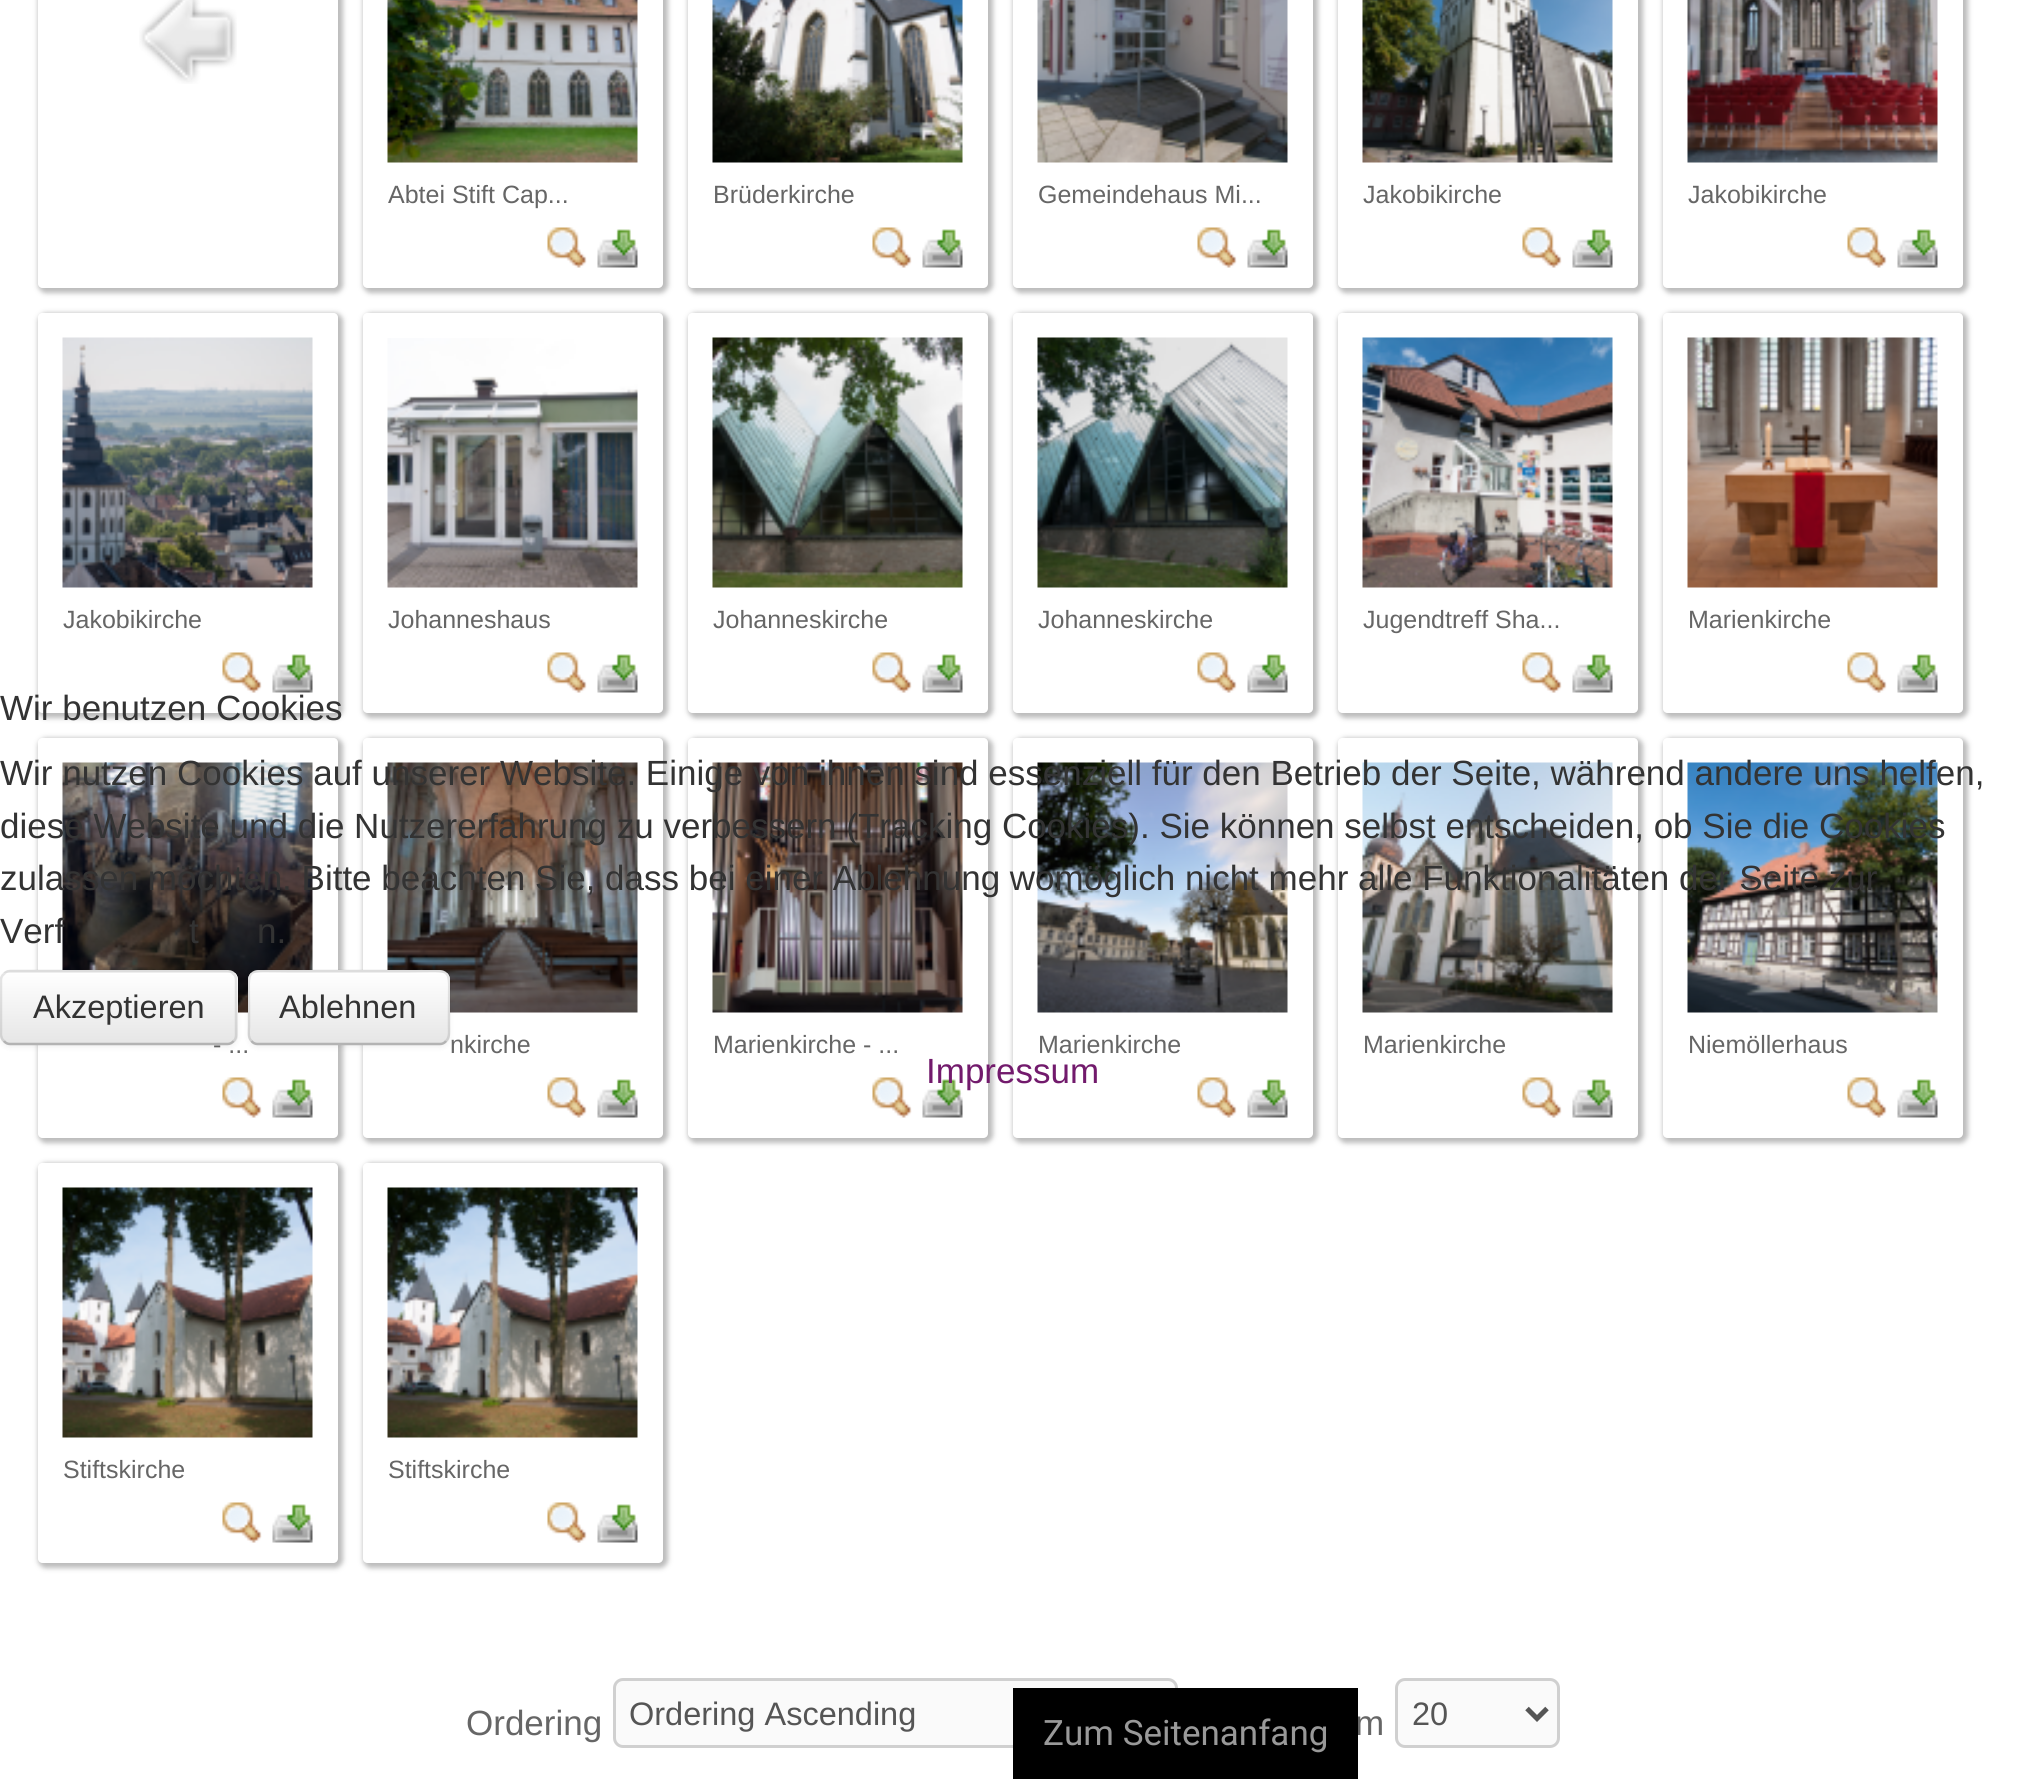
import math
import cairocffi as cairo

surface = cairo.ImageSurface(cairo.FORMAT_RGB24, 2025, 1779)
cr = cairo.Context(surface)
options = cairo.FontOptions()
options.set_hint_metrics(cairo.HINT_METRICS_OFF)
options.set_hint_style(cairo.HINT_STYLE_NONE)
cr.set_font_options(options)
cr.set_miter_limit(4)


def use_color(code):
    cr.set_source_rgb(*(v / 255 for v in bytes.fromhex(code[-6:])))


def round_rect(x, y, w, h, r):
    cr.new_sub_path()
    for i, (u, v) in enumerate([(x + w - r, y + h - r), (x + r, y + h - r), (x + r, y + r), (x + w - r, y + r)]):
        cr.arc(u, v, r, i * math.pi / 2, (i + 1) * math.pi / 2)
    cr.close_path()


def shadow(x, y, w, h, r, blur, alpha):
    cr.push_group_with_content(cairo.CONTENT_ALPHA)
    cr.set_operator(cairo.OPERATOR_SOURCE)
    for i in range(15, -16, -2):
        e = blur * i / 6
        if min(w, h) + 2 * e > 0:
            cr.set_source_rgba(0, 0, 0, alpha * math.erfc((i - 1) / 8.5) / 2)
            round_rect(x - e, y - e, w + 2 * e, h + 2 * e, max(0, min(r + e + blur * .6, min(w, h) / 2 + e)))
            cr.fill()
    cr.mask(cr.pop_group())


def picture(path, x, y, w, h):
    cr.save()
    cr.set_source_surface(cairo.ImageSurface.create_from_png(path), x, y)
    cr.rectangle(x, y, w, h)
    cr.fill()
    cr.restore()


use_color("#ffffff")
cr.paint()
cr.save()
cr.set_fill_rule(cairo.FILL_RULE_EVEN_ODD)
cr.new_path()
cr.move_to(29, 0)
cr.line_to(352, 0)
cr.line_to(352, 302)
cr.line_to(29, 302)
cr.close_path()
cr.move_to(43, -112)
cr.line_to(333, -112)
cr.curve_to(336, -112, 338, -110, 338, -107)
cr.line_to(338, 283)
cr.curve_to(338, 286, 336, 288, 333, 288)
cr.line_to(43, 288)
cr.curve_to(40, 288, 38, 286, 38, 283)
cr.line_to(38, -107)
cr.curve_to(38, -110, 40, -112, 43, -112)
cr.close_path()
cr.clip()
use_color("#787878")
shadow(38, -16, 305, 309, 8, 2.5, 0.5)
cr.restore()
picture("img1.png", 139, 0, 98, 84)
cr.save()
cr.set_fill_rule(cairo.FILL_RULE_EVEN_ODD)
cr.new_path()
cr.move_to(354, 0)
cr.line_to(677, 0)
cr.line_to(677, 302)
cr.line_to(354, 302)
cr.close_path()
cr.move_to(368, -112)
cr.line_to(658, -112)
cr.curve_to(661, -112, 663, -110, 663, -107)
cr.line_to(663, 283)
cr.curve_to(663, 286, 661, 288, 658, 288)
cr.line_to(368, 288)
cr.curve_to(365, 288, 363, 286, 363, 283)
cr.line_to(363, -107)
cr.curve_to(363, -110, 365, -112, 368, -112)
cr.close_path()
cr.clip()
use_color("#787878")
shadow(363, -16, 305, 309, 8, 2.5, 0.5)
cr.restore()
picture("img2.png", 387, 0, 251, 163)
cr.select_font_face("Liberation Sans")
cr.set_font_size(25)
use_color("#666666")
cr.move_to(388, 203)
cr.show_text("Abtei Stift Cap...")
picture("img3.png", 547, 227, 40, 41)
picture("img4.png", 597, 229, 41, 39)
cr.save()
cr.set_fill_rule(cairo.FILL_RULE_EVEN_ODD)
cr.new_path()
cr.move_to(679, 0)
cr.line_to(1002, 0)
cr.line_to(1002, 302)
cr.line_to(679, 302)
cr.close_path()
cr.move_to(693, -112)
cr.line_to(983, -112)
cr.curve_to(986, -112, 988, -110, 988, -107)
cr.line_to(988, 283)
cr.curve_to(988, 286, 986, 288, 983, 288)
cr.line_to(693, 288)
cr.curve_to(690, 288, 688, 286, 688, 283)
cr.line_to(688, -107)
cr.curve_to(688, -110, 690, -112, 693, -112)
cr.close_path()
cr.clip()
use_color("#787878")
shadow(688, -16, 305, 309, 8, 2.5, 0.5)
cr.restore()
picture("img5.png", 712, 0, 251, 163)
cr.move_to(713, 203)
cr.show_text("Brüderkirche")
picture("img3.png", 872, 227, 40, 41)
picture("img6.png", 922, 229, 41, 39)
cr.save()
cr.set_fill_rule(cairo.FILL_RULE_EVEN_ODD)
cr.new_path()
cr.move_to(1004, 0)
cr.line_to(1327, 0)
cr.line_to(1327, 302)
cr.line_to(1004, 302)
cr.close_path()
cr.move_to(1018, -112)
cr.line_to(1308, -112)
cr.curve_to(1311, -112, 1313, -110, 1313, -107)
cr.line_to(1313, 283)
cr.curve_to(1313, 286, 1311, 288, 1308, 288)
cr.line_to(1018, 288)
cr.curve_to(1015, 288, 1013, 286, 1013, 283)
cr.line_to(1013, -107)
cr.curve_to(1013, -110, 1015, -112, 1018, -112)
cr.close_path()
cr.clip()
use_color("#787878")
shadow(1013, -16, 305, 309, 8, 2.5, 0.5)
cr.restore()
picture("img7.png", 1037, 0, 251, 163)
cr.move_to(1038, 203)
cr.show_text("Gemeindehaus Mi...")
picture("img3.png", 1197, 227, 40, 41)
picture("img8.png", 1247, 229, 41, 39)
cr.save()
cr.set_fill_rule(cairo.FILL_RULE_EVEN_ODD)
cr.new_path()
cr.move_to(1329, 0)
cr.line_to(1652, 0)
cr.line_to(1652, 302)
cr.line_to(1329, 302)
cr.close_path()
cr.move_to(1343, -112)
cr.line_to(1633, -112)
cr.curve_to(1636, -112, 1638, -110, 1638, -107)
cr.line_to(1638, 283)
cr.curve_to(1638, 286, 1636, 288, 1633, 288)
cr.line_to(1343, 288)
cr.curve_to(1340, 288, 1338, 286, 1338, 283)
cr.line_to(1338, -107)
cr.curve_to(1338, -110, 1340, -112, 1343, -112)
cr.close_path()
cr.clip()
use_color("#787878")
shadow(1338, -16, 305, 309, 8, 2.5, 0.5)
cr.restore()
picture("img9.png", 1362, 0, 251, 163)
cr.move_to(1363, 203)
cr.show_text("Jakobikirche")
picture("img3.png", 1522, 227, 40, 41)
picture("img4.png", 1572, 229, 41, 39)
cr.save()
cr.set_fill_rule(cairo.FILL_RULE_EVEN_ODD)
cr.new_path()
cr.move_to(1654, 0)
cr.line_to(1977, 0)
cr.line_to(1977, 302)
cr.line_to(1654, 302)
cr.close_path()
cr.move_to(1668, -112)
cr.line_to(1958, -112)
cr.curve_to(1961, -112, 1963, -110, 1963, -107)
cr.line_to(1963, 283)
cr.curve_to(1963, 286, 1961, 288, 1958, 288)
cr.line_to(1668, 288)
cr.curve_to(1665, 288, 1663, 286, 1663, 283)
cr.line_to(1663, -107)
cr.curve_to(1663, -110, 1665, -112, 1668, -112)
cr.close_path()
cr.clip()
use_color("#787878")
shadow(1663, -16, 305, 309, 8, 2.5, 0.5)
cr.restore()
picture("img10.png", 1687, 0, 251, 163)
cr.move_to(1688, 203)
cr.show_text("Jakobikirche")
picture("img11.png", 1847, 227, 40, 41)
picture("img4.png", 1897, 229, 41, 39)
cr.save()
cr.set_fill_rule(cairo.FILL_RULE_EVEN_ODD)
cr.new_path()
cr.move_to(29, 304)
cr.line_to(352, 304)
cr.line_to(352, 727)
cr.line_to(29, 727)
cr.close_path()
cr.move_to(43, 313)
cr.line_to(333, 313)
cr.curve_to(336, 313, 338, 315, 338, 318)
cr.line_to(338, 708)
cr.curve_to(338, 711, 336, 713, 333, 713)
cr.line_to(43, 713)
cr.curve_to(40, 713, 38, 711, 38, 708)
cr.line_to(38, 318)
cr.curve_to(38, 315, 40, 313, 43, 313)
cr.close_path()
cr.clip()
use_color("#787878")
shadow(38, 313, 305, 405, 8, 2.5, 0.5)
cr.restore()
picture("img12.png", 62, 337, 251, 251)
cr.move_to(63, 628)
cr.show_text("Jakobikirche")
picture("img3.png", 222, 652, 40, 41)
picture("img4.png", 272, 654, 41, 39)
cr.save()
cr.set_fill_rule(cairo.FILL_RULE_EVEN_ODD)
cr.new_path()
cr.move_to(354, 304)
cr.line_to(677, 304)
cr.line_to(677, 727)
cr.line_to(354, 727)
cr.close_path()
cr.move_to(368, 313)
cr.line_to(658, 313)
cr.curve_to(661, 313, 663, 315, 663, 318)
cr.line_to(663, 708)
cr.curve_to(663, 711, 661, 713, 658, 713)
cr.line_to(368, 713)
cr.curve_to(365, 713, 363, 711, 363, 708)
cr.line_to(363, 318)
cr.curve_to(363, 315, 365, 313, 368, 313)
cr.close_path()
cr.clip()
use_color("#787878")
shadow(363, 313, 305, 405, 8, 2.5, 0.5)
cr.restore()
picture("img13.png", 387, 338, 251, 250)
cr.move_to(388, 628)
cr.show_text("Johanneshaus")
picture("img3.png", 547, 652, 40, 41)
picture("img4.png", 597, 654, 41, 39)
cr.save()
cr.set_fill_rule(cairo.FILL_RULE_EVEN_ODD)
cr.new_path()
cr.move_to(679, 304)
cr.line_to(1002, 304)
cr.line_to(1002, 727)
cr.line_to(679, 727)
cr.close_path()
cr.move_to(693, 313)
cr.line_to(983, 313)
cr.curve_to(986, 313, 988, 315, 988, 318)
cr.line_to(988, 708)
cr.curve_to(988, 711, 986, 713, 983, 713)
cr.line_to(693, 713)
cr.curve_to(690, 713, 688, 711, 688, 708)
cr.line_to(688, 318)
cr.curve_to(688, 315, 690, 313, 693, 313)
cr.close_path()
cr.clip()
use_color("#787878")
shadow(688, 313, 305, 405, 8, 2.5, 0.5)
cr.restore()
picture("img14.png", 712, 337, 251, 251)
cr.move_to(713, 628)
cr.show_text("Johanneskirche")
picture("img3.png", 872, 652, 40, 41)
picture("img6.png", 922, 654, 41, 39)
cr.save()
cr.set_fill_rule(cairo.FILL_RULE_EVEN_ODD)
cr.new_path()
cr.move_to(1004, 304)
cr.line_to(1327, 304)
cr.line_to(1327, 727)
cr.line_to(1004, 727)
cr.close_path()
cr.move_to(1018, 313)
cr.line_to(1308, 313)
cr.curve_to(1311, 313, 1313, 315, 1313, 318)
cr.line_to(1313, 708)
cr.curve_to(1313, 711, 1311, 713, 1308, 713)
cr.line_to(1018, 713)
cr.curve_to(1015, 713, 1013, 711, 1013, 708)
cr.line_to(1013, 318)
cr.curve_to(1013, 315, 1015, 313, 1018, 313)
cr.close_path()
cr.clip()
use_color("#787878")
shadow(1013, 313, 305, 405, 8, 2.5, 0.5)
cr.restore()
picture("img15.png", 1037, 337, 251, 251)
cr.move_to(1038, 628)
cr.show_text("Johanneskirche")
picture("img3.png", 1197, 652, 40, 41)
picture("img8.png", 1247, 654, 41, 39)
cr.save()
cr.set_fill_rule(cairo.FILL_RULE_EVEN_ODD)
cr.new_path()
cr.move_to(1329, 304)
cr.line_to(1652, 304)
cr.line_to(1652, 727)
cr.line_to(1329, 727)
cr.close_path()
cr.move_to(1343, 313)
cr.line_to(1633, 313)
cr.curve_to(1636, 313, 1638, 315, 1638, 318)
cr.line_to(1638, 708)
cr.curve_to(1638, 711, 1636, 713, 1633, 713)
cr.line_to(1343, 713)
cr.curve_to(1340, 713, 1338, 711, 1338, 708)
cr.line_to(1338, 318)
cr.curve_to(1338, 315, 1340, 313, 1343, 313)
cr.close_path()
cr.clip()
use_color("#787878")
shadow(1338, 313, 305, 405, 8, 2.5, 0.5)
cr.restore()
picture("img16.png", 1362, 337, 251, 251)
cr.move_to(1363, 628)
cr.show_text("Jugendtreff Sha...")
picture("img3.png", 1522, 652, 40, 41)
picture("img4.png", 1572, 654, 41, 39)
cr.save()
cr.set_fill_rule(cairo.FILL_RULE_EVEN_ODD)
cr.new_path()
cr.move_to(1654, 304)
cr.line_to(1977, 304)
cr.line_to(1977, 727)
cr.line_to(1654, 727)
cr.close_path()
cr.move_to(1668, 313)
cr.line_to(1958, 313)
cr.curve_to(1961, 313, 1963, 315, 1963, 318)
cr.line_to(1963, 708)
cr.curve_to(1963, 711, 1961, 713, 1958, 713)
cr.line_to(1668, 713)
cr.curve_to(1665, 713, 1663, 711, 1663, 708)
cr.line_to(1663, 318)
cr.curve_to(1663, 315, 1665, 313, 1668, 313)
cr.close_path()
cr.clip()
use_color("#787878")
shadow(1663, 313, 305, 405, 8, 2.5, 0.5)
cr.restore()
picture("img17.png", 1687, 337, 251, 251)
cr.move_to(1688, 628)
cr.show_text("Marienkirche")
picture("img11.png", 1847, 652, 40, 41)
picture("img4.png", 1897, 654, 41, 39)
cr.save()
cr.set_fill_rule(cairo.FILL_RULE_EVEN_ODD)
cr.new_path()
cr.move_to(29, 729)
cr.line_to(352, 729)
cr.line_to(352, 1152)
cr.line_to(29, 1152)
cr.close_path()
cr.move_to(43, 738)
cr.line_to(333, 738)
cr.curve_to(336, 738, 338, 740, 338, 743)
cr.line_to(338, 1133)
cr.curve_to(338, 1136, 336, 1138, 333, 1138)
cr.line_to(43, 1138)
cr.curve_to(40, 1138, 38, 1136, 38, 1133)
cr.line_to(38, 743)
cr.curve_to(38, 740, 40, 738, 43, 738)
cr.close_path()
cr.clip()
use_color("#787878")
shadow(38, 738, 305, 405, 8, 2.5, 0.5)
cr.restore()
picture("img18.png", 62, 762, 251, 251)
cr.move_to(213, 1053)
cr.show_text("- ...")
picture("img3.png", 222, 1077, 40, 41)
picture("img4.png", 272, 1079, 41, 39)
cr.save()
cr.set_fill_rule(cairo.FILL_RULE_EVEN_ODD)
cr.new_path()
cr.move_to(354, 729)
cr.line_to(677, 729)
cr.line_to(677, 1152)
cr.line_to(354, 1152)
cr.close_path()
cr.move_to(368, 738)
cr.line_to(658, 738)
cr.curve_to(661, 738, 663, 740, 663, 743)
cr.line_to(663, 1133)
cr.curve_to(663, 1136, 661, 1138, 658, 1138)
cr.line_to(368, 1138)
cr.curve_to(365, 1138, 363, 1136, 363, 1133)
cr.line_to(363, 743)
cr.curve_to(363, 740, 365, 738, 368, 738)
cr.close_path()
cr.clip()
use_color("#787878")
shadow(363, 738, 305, 405, 8, 2.5, 0.5)
cr.restore()
picture("img19.png", 387, 762, 251, 251)
cr.move_to(450, 1053)
cr.show_text("nkirche")
picture("img3.png", 547, 1077, 40, 41)
picture("img4.png", 597, 1079, 41, 39)
cr.save()
cr.set_fill_rule(cairo.FILL_RULE_EVEN_ODD)
cr.new_path()
cr.move_to(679, 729)
cr.line_to(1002, 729)
cr.line_to(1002, 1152)
cr.line_to(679, 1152)
cr.close_path()
cr.move_to(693, 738)
cr.line_to(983, 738)
cr.curve_to(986, 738, 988, 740, 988, 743)
cr.line_to(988, 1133)
cr.curve_to(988, 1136, 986, 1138, 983, 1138)
cr.line_to(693, 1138)
cr.curve_to(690, 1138, 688, 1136, 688, 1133)
cr.line_to(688, 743)
cr.curve_to(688, 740, 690, 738, 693, 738)
cr.close_path()
cr.clip()
use_color("#787878")
shadow(688, 738, 305, 405, 8, 2.5, 0.5)
cr.restore()
picture("img20.png", 712, 762, 251, 251)
cr.move_to(713, 1053)
cr.show_text("Marienkirche - ...")
picture("img3.png", 872, 1077, 40, 41)
picture("img6.png", 922, 1079, 41, 39)
cr.save()
cr.set_fill_rule(cairo.FILL_RULE_EVEN_ODD)
cr.new_path()
cr.move_to(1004, 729)
cr.line_to(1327, 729)
cr.line_to(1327, 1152)
cr.line_to(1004, 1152)
cr.close_path()
cr.move_to(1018, 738)
cr.line_to(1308, 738)
cr.curve_to(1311, 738, 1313, 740, 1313, 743)
cr.line_to(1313, 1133)
cr.curve_to(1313, 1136, 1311, 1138, 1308, 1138)
cr.line_to(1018, 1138)
cr.curve_to(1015, 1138, 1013, 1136, 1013, 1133)
cr.line_to(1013, 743)
cr.curve_to(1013, 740, 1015, 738, 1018, 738)
cr.close_path()
cr.clip()
use_color("#787878")
shadow(1013, 738, 305, 405, 8, 2.5, 0.5)
cr.restore()
picture("img21.png", 1037, 762, 251, 251)
cr.move_to(1038, 1053)
cr.show_text("Marienkirche")
picture("img3.png", 1197, 1077, 40, 41)
picture("img8.png", 1247, 1079, 41, 39)
cr.save()
cr.set_fill_rule(cairo.FILL_RULE_EVEN_ODD)
cr.new_path()
cr.move_to(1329, 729)
cr.line_to(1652, 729)
cr.line_to(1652, 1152)
cr.line_to(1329, 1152)
cr.close_path()
cr.move_to(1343, 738)
cr.line_to(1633, 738)
cr.curve_to(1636, 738, 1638, 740, 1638, 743)
cr.line_to(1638, 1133)
cr.curve_to(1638, 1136, 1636, 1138, 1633, 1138)
cr.line_to(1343, 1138)
cr.curve_to(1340, 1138, 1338, 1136, 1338, 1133)
cr.line_to(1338, 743)
cr.curve_to(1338, 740, 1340, 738, 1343, 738)
cr.close_path()
cr.clip()
use_color("#787878")
shadow(1338, 738, 305, 405, 8, 2.5, 0.5)
cr.restore()
picture("img22.png", 1362, 762, 251, 251)
cr.move_to(1363, 1053)
cr.show_text("Marienkirche")
picture("img3.png", 1522, 1077, 40, 41)
picture("img4.png", 1572, 1079, 41, 39)
cr.save()
cr.set_fill_rule(cairo.FILL_RULE_EVEN_ODD)
cr.new_path()
cr.move_to(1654, 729)
cr.line_to(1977, 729)
cr.line_to(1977, 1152)
cr.line_to(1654, 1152)
cr.close_path()
cr.move_to(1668, 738)
cr.line_to(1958, 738)
cr.curve_to(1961, 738, 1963, 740, 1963, 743)
cr.line_to(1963, 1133)
cr.curve_to(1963, 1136, 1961, 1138, 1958, 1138)
cr.line_to(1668, 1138)
cr.curve_to(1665, 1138, 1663, 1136, 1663, 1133)
cr.line_to(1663, 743)
cr.curve_to(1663, 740, 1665, 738, 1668, 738)
cr.close_path()
cr.clip()
use_color("#787878")
shadow(1663, 738, 305, 405, 8, 2.5, 0.5)
cr.restore()
picture("img23.png", 1687, 762, 251, 251)
cr.move_to(1688, 1053)
cr.show_text("Niemöllerhaus")
picture("img11.png", 1847, 1077, 40, 41)
picture("img4.png", 1897, 1079, 41, 39)
cr.save()
cr.set_fill_rule(cairo.FILL_RULE_EVEN_ODD)
cr.new_path()
cr.move_to(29, 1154)
cr.line_to(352, 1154)
cr.line_to(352, 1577)
cr.line_to(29, 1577)
cr.close_path()
cr.move_to(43, 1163)
cr.line_to(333, 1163)
cr.curve_to(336, 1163, 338, 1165, 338, 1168)
cr.line_to(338, 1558)
cr.curve_to(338, 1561, 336, 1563, 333, 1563)
cr.line_to(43, 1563)
cr.curve_to(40, 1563, 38, 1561, 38, 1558)
cr.line_to(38, 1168)
cr.curve_to(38, 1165, 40, 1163, 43, 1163)
cr.close_path()
cr.clip()
use_color("#787878")
shadow(38, 1163, 305, 405, 8, 2.5, 0.5)
cr.restore()
picture("img24.png", 62, 1187, 251, 251)
cr.move_to(63, 1478)
cr.show_text("Stiftskirche")
picture("img3.png", 222, 1502, 40, 41)
picture("img4.png", 272, 1504, 41, 39)
cr.save()
cr.set_fill_rule(cairo.FILL_RULE_EVEN_ODD)
cr.new_path()
cr.move_to(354, 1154)
cr.line_to(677, 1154)
cr.line_to(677, 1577)
cr.line_to(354, 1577)
cr.close_path()
cr.move_to(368, 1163)
cr.line_to(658, 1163)
cr.curve_to(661, 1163, 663, 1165, 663, 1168)
cr.line_to(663, 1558)
cr.curve_to(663, 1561, 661, 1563, 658, 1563)
cr.line_to(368, 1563)
cr.curve_to(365, 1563, 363, 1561, 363, 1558)
cr.line_to(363, 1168)
cr.curve_to(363, 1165, 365, 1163, 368, 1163)
cr.close_path()
cr.clip()
use_color("#787878")
shadow(363, 1163, 305, 405, 8, 2.5, 0.5)
cr.restore()
picture("img25.png", 387, 1187, 251, 251)
cr.move_to(388, 1478)
cr.show_text("Stiftskirche")
picture("img3.png", 547, 1502, 40, 41)
picture("img4.png", 597, 1504, 41, 39)
cr.set_font_size(35)
cr.move_to(466, 1735)
cr.show_text("Ordering")
use_color("#fafafa")
round_rect(614.5, 1679.5, 562, 67, 8.5)
cr.fill_preserve()
use_color("#d0d0d0")
cr.set_line_width(3)
cr.stroke()
cr.set_font_size(32.5)
use_color("#555555")
cr.move_to(629, 1725)
cr.show_text("Ordering Ascending")
cr.set_font_size(35)
use_color("#666666")
cr.move_to(1355, 1735)
cr.show_text("m")
use_color("#fafafa")
round_rect(1396.5, 1679.5, 162, 67, 8.5)
cr.fill_preserve()
use_color("#d0d0d0")
cr.stroke()
cr.new_path()
cr.move_to(1527, 1708.5)
cr.line_to(1537, 1718.5)
cr.line_to(1547, 1708.5)
use_color("#555555")
cr.set_line_width(5)
cr.stroke()
cr.set_font_size(32.5)
cr.move_to(1412, 1725)
cr.show_text("20")
cr.set_font_size(35)
use_color("#333333")
cr.move_to(0, 720)
cr.show_text("Wir benutzen Cookies")
cr.move_to(0, 785)
cr.show_text("Wir nutzen Cookies auf unserer Website. Einige von ihnen sind essenziell für den Betrieb der Seite, während andere uns helfen,")
cr.move_to(0, 838)
cr.show_text("diese Website und die Nutzererfahrung zu verbessern (Tracking Cookies). Sie können selbst entscheiden, ob Sie die Cookies")
cr.move_to(0, 890)
cr.show_text("zulassen möchten. Bitte beachten Sie, dass bei einer Ablehnung womöglich nicht mehr alle Funktionalitäten der Seite zur")
cr.move_to(0, 943)
cr.show_text("Verf")
cr.move_to(189, 943)
cr.show_text("t")
cr.move_to(257, 943)
cr.show_text("n.")
use_color("#000000")
shadow(0, 973, 238, 75, 10, 2.5, 0.05)
use_color("#f5f5f5")
round_rect(0, 970, 238, 75, 10)
cr.fill()
cr.save()
round_rect(0, 970, 238, 75, 10)
cr.clip()
gradient = cairo.LinearGradient(119, 973, 119, 1043)
gradient.add_color_stop_rgba(0, 1, 1, 1, 1)
gradient.add_color_stop_rgba(1, 0.902, 0.902, 0.902, 1)
cr.set_source(gradient)
cr.rectangle(0, 973, 238, 70)
cr.fill()
cr.restore()
cr.new_path()
cr.move_to(233.5, 1041)
cr.curve_to(232, 1043, 230, 1044, 227.5, 1044)
cr.line_to(10, 1044)
cr.curve_to(7.5, 1044, 5.5, 1043, 4, 1041)
use_color("#b3b3b3")
cr.set_line_width(2.5)
cr.stroke()
cr.new_path()
cr.move_to(4, 1041)
cr.curve_to(2, 1039.5, 1.5, 1037.5, 1, 1035)
cr.line_to(1, 980)
cr.curve_to(1, 977.5, 2, 975.5, 4, 974)
cr.curve_to(5.5, 972, 7.5, 971, 10, 971)
cr.line_to(227.5, 971)
cr.curve_to(230, 971, 232, 972, 233.5, 974)
cr.curve_to(235.5, 975.5, 236, 977.5, 236, 980)
cr.line_to(236, 1035)
cr.curve_to(236, 1037.5, 235.5, 1039.5, 233.5, 1041)
cr.set_source_rgba(0, 0, 0, 0.1)
cr.stroke()
cr.set_font_size(32.5)
use_color("#333333")
cr.move_to(33, 1018)
cr.show_text("Akzeptieren")
use_color("#000000")
shadow(248, 973, 202, 75, 10, 2.5, 0.05)
use_color("#f5f5f5")
round_rect(248, 970, 202, 75, 10)
cr.fill()
cr.save()
round_rect(248, 970, 202, 75, 10)
cr.clip()
gradient = cairo.LinearGradient(349, 973, 349, 1043)
gradient.add_color_stop_rgba(0, 1, 1, 1, 1)
gradient.add_color_stop_rgba(1, 0.902, 0.902, 0.902, 1)
cr.set_source(gradient)
cr.rectangle(248, 973, 202, 70)
cr.fill()
cr.restore()
cr.new_path()
cr.move_to(446, 1041)
cr.curve_to(444.5, 1043, 442.5, 1044, 440, 1044)
cr.line_to(257.5, 1044)
cr.curve_to(255, 1044, 253, 1043, 251.5, 1041)
use_color("#b3b3b3")
cr.stroke()
cr.new_path()
cr.move_to(251.5, 1041)
cr.curve_to(247.5, 1037.5, 249, 1030.5, 249, 1026)
cr.line_to(249, 1007.5)
cr.curve_to(249, 965, 243, 971, 288, 971)
cr.line_to(409.5, 971)
cr.curve_to(454.5, 971, 449, 965, 449, 1007.5)
cr.line_to(449, 1026)
cr.curve_to(449, 1030.5, 450, 1037.5, 446, 1041)
cr.set_source_rgba(0, 0, 0, 0.1)
cr.stroke()
use_color("#333333")
cr.move_to(279, 1018)
cr.show_text("Ablehnen")
cr.set_font_size(35)
use_color("#721a6c")
cr.move_to(926, 1083)
cr.show_text("Impressum")
use_color("#000000")
cr.rectangle(1013, 1688, 345, 91)
cr.fill()
cr.select_font_face("Roboto")
use_color("#999999")
cr.move_to(1043, 1745)
cr.show_text("Zum Seitenanfang")
surface.write_to_png("result.png")
